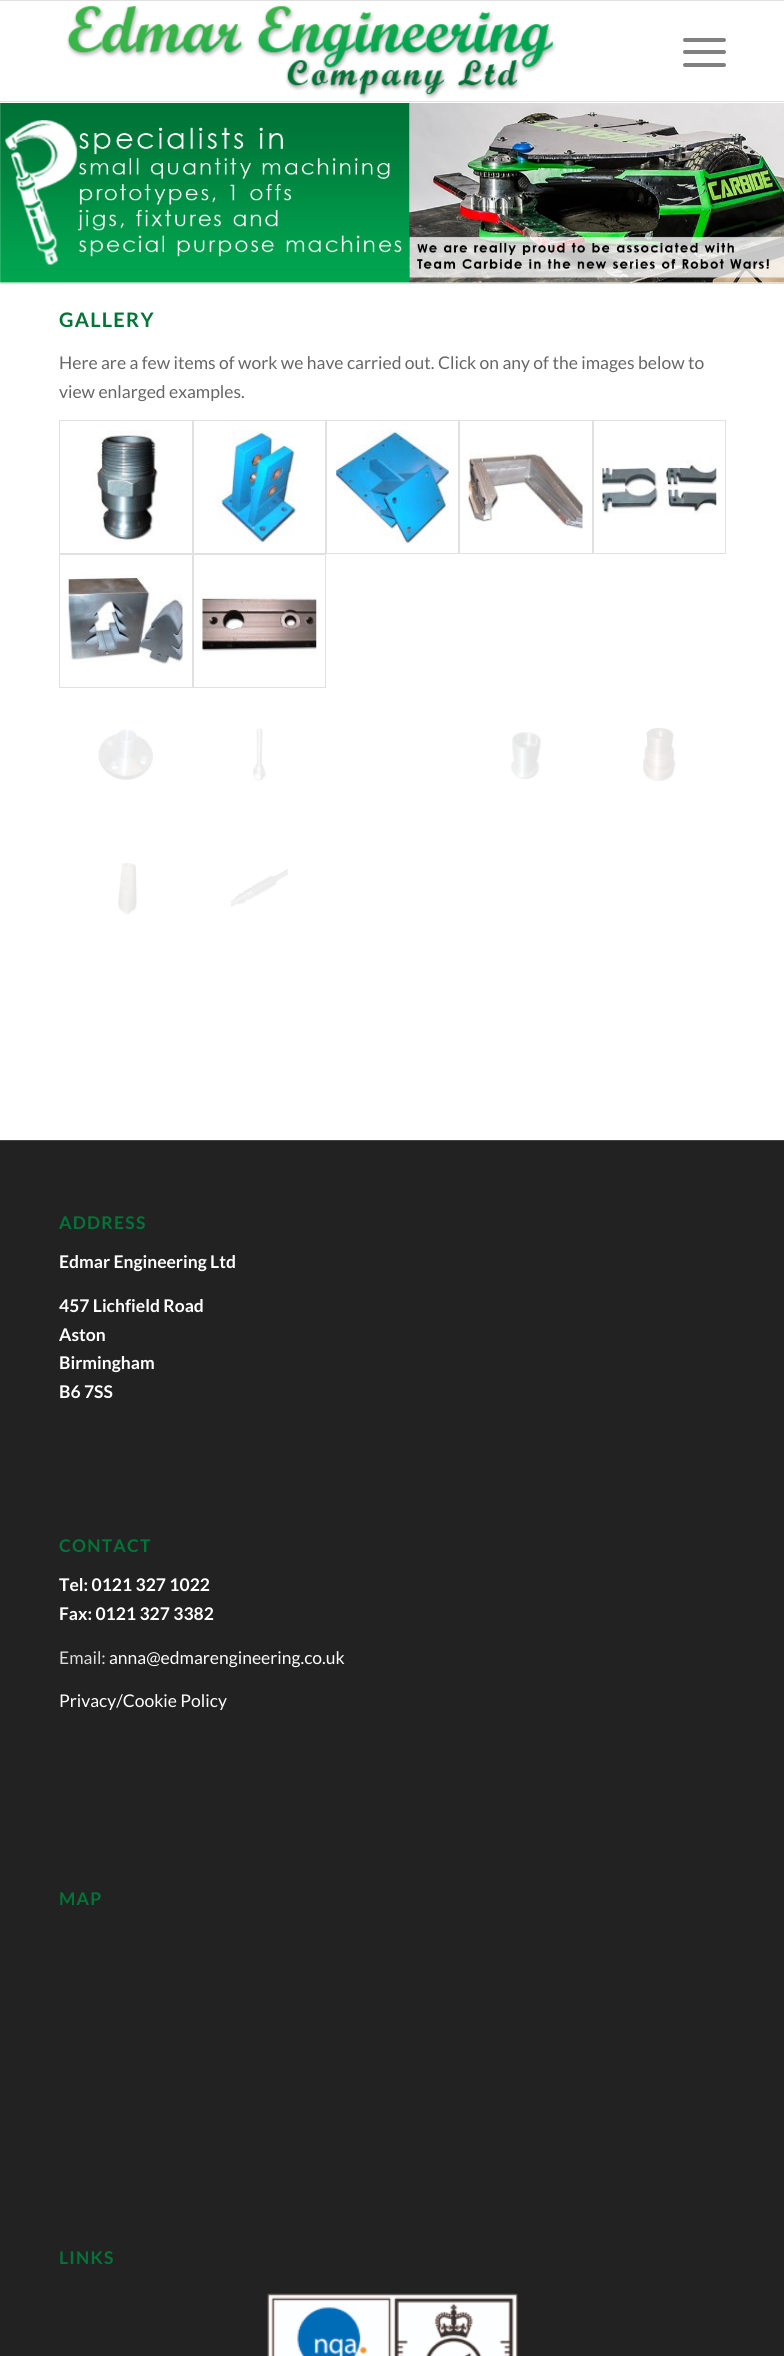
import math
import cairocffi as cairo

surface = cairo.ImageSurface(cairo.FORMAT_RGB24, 784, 2356)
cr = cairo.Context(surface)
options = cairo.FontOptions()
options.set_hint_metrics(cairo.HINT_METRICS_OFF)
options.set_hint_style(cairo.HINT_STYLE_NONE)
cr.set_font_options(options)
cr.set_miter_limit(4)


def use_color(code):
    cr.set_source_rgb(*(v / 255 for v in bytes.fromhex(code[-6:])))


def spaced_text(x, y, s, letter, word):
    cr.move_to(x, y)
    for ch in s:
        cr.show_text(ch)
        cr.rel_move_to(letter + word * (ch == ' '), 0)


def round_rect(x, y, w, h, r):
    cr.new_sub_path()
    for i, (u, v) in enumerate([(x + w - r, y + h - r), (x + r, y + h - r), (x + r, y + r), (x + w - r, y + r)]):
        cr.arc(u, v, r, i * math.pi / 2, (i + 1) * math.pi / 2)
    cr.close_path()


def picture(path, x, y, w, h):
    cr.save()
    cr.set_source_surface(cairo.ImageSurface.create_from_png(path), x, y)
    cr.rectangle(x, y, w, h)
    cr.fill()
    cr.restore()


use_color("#ffffff")
cr.paint()
use_color("#e1e1e1")
cr.rectangle(0, 0, 784, 1)
cr.fill()
cr.rectangle(0, 101, 784, 1)
cr.fill()
picture("img1.png", 67, 5, 489, 94)
use_color("#808080")
round_rect(683, 50, 43, 4, 2)
cr.fill()
round_rect(683, 38, 43, 4, 2)
cr.fill()
round_rect(683, 63, 43, 4, 2)
cr.fill()
picture("img2.png", 0, 103, 784, 180)
use_color("#e1e1e1")
cr.rectangle(0, 283, 784, 1)
cr.fill()
cr.select_font_face("Lato", cairo.FONT_SLANT_NORMAL, cairo.FONT_WEIGHT_BOLD)
cr.set_font_size(20)
use_color("#007336")
spaced_text(59, 327, "GALLERY", 1.25, 0)
cr.select_font_face("Lato")
cr.set_font_size(17.5)
use_color("#666666")
cr.move_to(59, 369)
cr.show_text("Here are a few items of work we have carried out. Click on any of the images below to")
cr.move_to(59, 398)
cr.show_text("view enlarged examples.")
cr.rectangle(59.5, 420.5, 133, 133)
use_color("#e1e1e1")
cr.set_line_width(1)
cr.stroke()
picture("img3.png", 92, 430, 68, 114)
cr.rectangle(193.5, 420.5, 132, 133)
cr.stroke()
picture("img4.png", 217, 430, 83, 114)
cr.rectangle(326.5, 420.5, 132, 133)
cr.stroke()
picture("img5.png", 336, 430, 113, 114)
cr.rectangle(459.5, 420.5, 133, 133)
cr.stroke()
picture("img6.png", 468, 453, 115, 76)
cr.rectangle(593.5, 420.5, 132, 133)
cr.stroke()
picture("img7.png", 602, 460, 115, 54)
cr.rectangle(59.5, 554.5, 133, 133)
cr.stroke()
picture("img8.png", 68, 575, 115, 90)
cr.rectangle(193.5, 554.5, 132, 133)
cr.stroke()
picture("img9.png", 202, 594, 115, 61)
picture("img10.png", 98, 729, 55, 51)
picture("img11.png", 253, 728, 13, 53)
picture("img12.png", 511, 732, 30, 47)
picture("img13.png", 643, 728, 33, 53)
picture("img14.png", 118, 863, 19, 52)
picture("img15.png", 231, 869, 57, 38)
use_color("#222222")
cr.rectangle(0, 1141, 784, 1215)
cr.fill()
use_color("#444444")
cr.rectangle(0, 1140, 784, 1)
cr.fill()
cr.select_font_face("Lato", cairo.FONT_SLANT_NORMAL, cairo.FONT_WEIGHT_BOLD)
use_color("#007336")
spaced_text(59, 1229, "ADDRESS", 1.25, 0)
use_color("#ffffff")
cr.move_to(59, 1268)
cr.show_text("Edmar Engineering Ltd")
cr.move_to(59, 1312)
cr.show_text("457 Lichfield Road")
cr.move_to(59, 1341)
cr.show_text("Aston")
cr.move_to(59, 1369)
cr.show_text("Birmingham")
cr.move_to(59, 1398)
cr.show_text("B6 7SS")
use_color("#007336")
spaced_text(59, 1552, "CONTACT", 1.25, 0)
use_color("#ffffff")
cr.move_to(59, 1591)
cr.show_text("Tel: 0121 327 1022")
cr.move_to(59, 1620)
cr.show_text("Fax: 0121 327 3382")
cr.select_font_face("Lato")
use_color("#dddddd")
cr.move_to(59, 1664)
cr.show_text("Email:")
use_color("#ffffff")
cr.move_to(109, 1664)
cr.show_text("anna@edmarengineering.co.uk")
cr.move_to(59, 1707)
cr.show_text("Privacy/Cookie Policy")
cr.select_font_face("Lato", cairo.FONT_SLANT_NORMAL, cairo.FONT_WEIGHT_BOLD)
use_color("#007336")
spaced_text(59, 1905, "MAP", 1.25, 0)
spaced_text(59, 2264, "LINKS", 1.25, 0)
picture("img16.png", 267, 2293, 251, 63)
surface.write_to_png("result.png")
